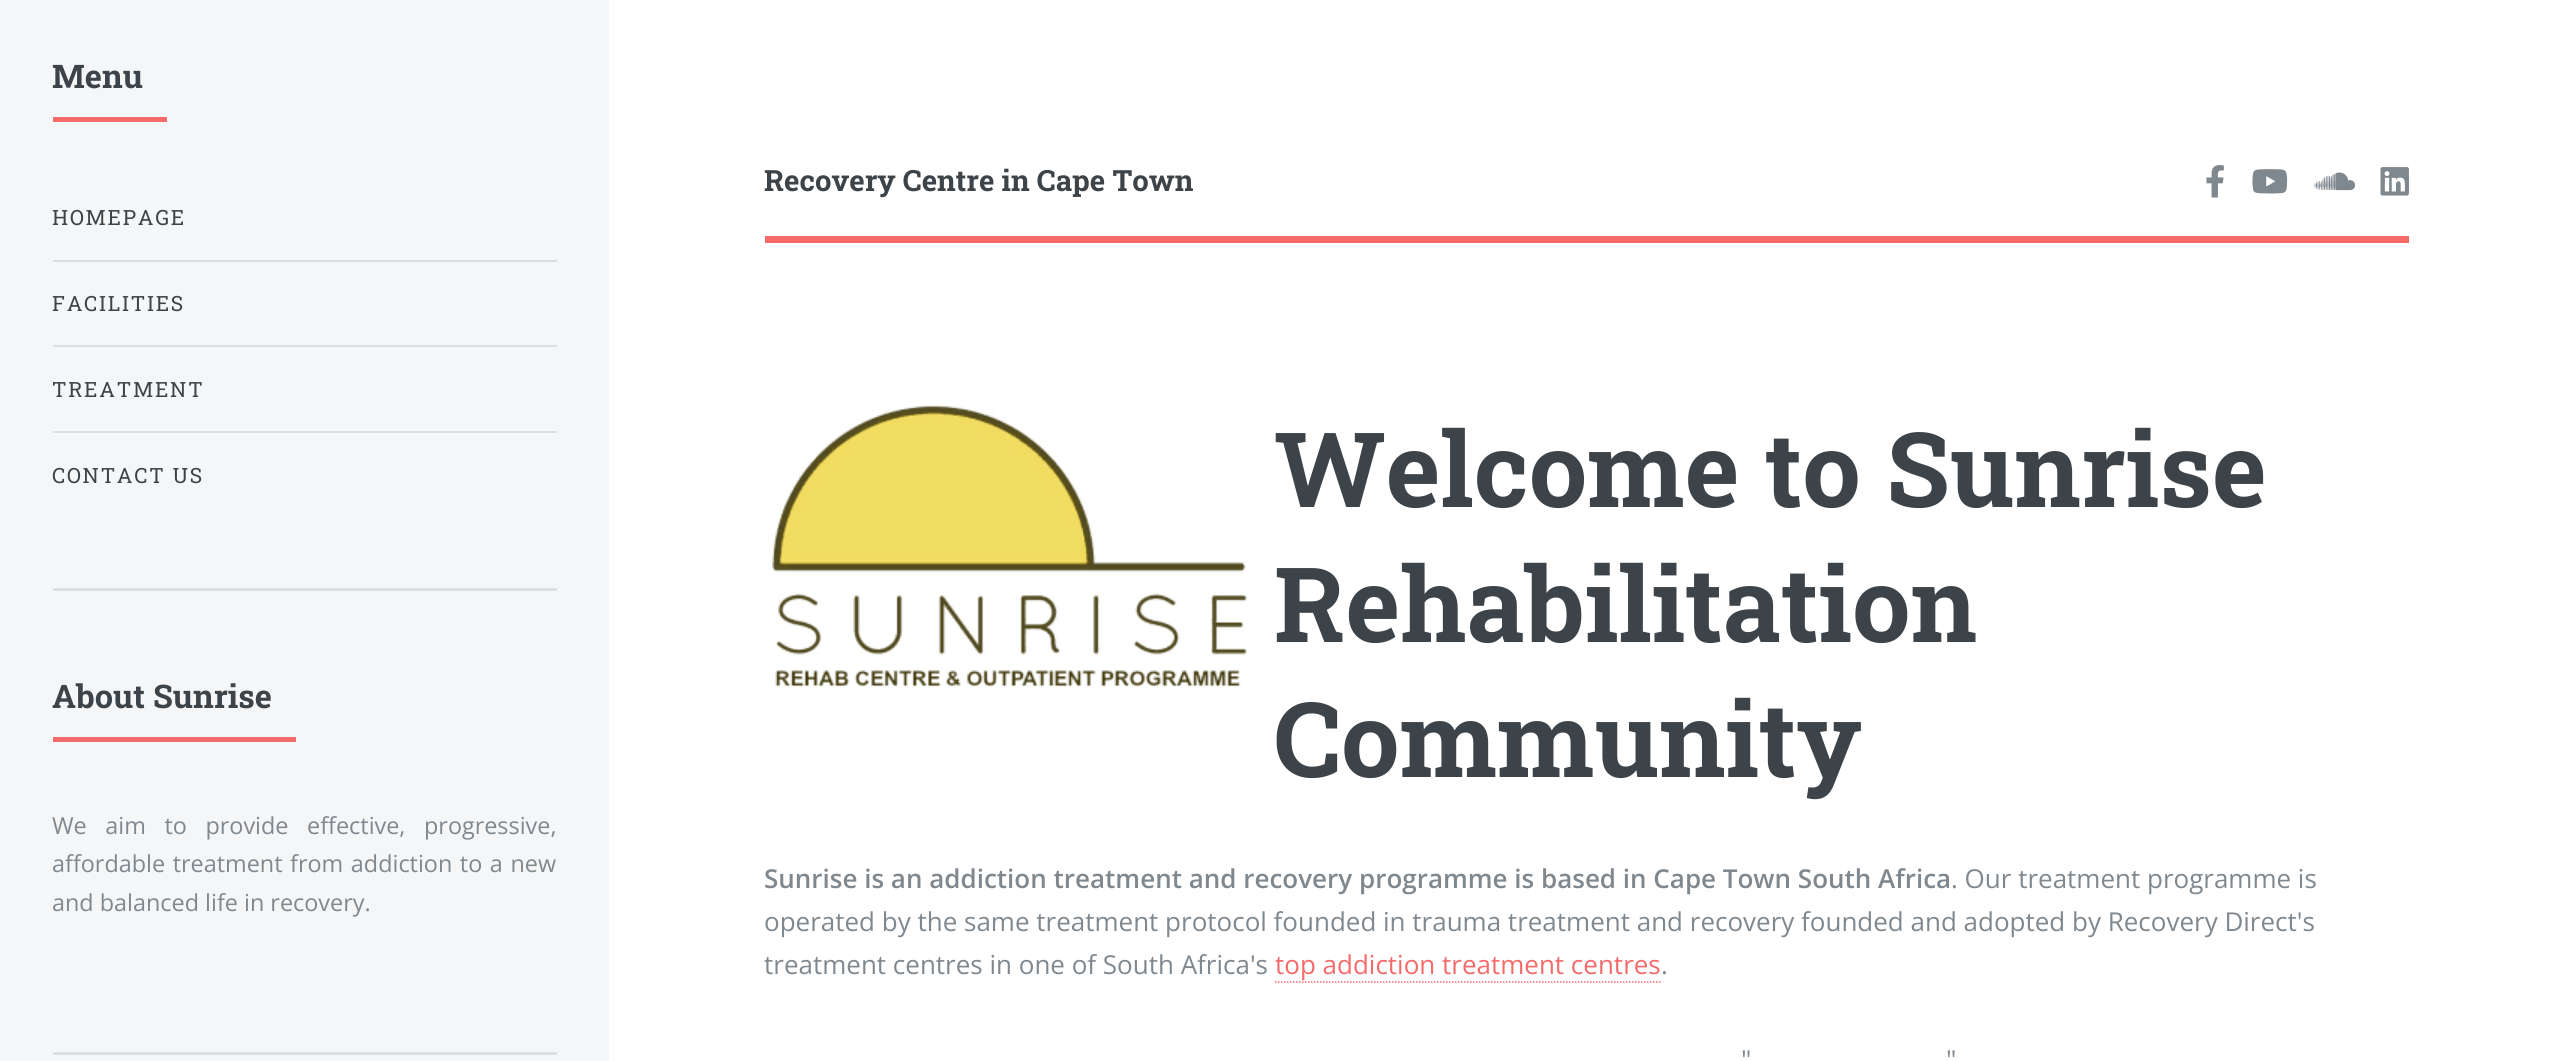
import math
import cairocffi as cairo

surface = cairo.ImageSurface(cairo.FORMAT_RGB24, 2564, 1061)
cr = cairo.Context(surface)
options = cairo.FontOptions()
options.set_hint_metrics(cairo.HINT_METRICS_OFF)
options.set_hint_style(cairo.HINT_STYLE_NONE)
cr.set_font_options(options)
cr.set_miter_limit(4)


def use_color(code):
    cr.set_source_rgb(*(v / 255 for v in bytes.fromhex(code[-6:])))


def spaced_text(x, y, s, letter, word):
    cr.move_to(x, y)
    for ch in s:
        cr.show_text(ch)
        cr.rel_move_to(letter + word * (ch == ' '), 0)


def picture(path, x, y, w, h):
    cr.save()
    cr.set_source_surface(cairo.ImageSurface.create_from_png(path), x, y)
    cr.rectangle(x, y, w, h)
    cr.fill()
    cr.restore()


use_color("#ffffff")
cr.paint()
use_color("#f5f6f7")
cr.rectangle(0, 0, 609, 1061)
cr.fill()
use_color("#dbdfe1")
cr.rectangle(53, 588, 504, 3)
cr.fill()
use_color("#f56a6a")
cr.rectangle(53, 117, 114, 5)
cr.fill()
cr.select_font_face("Roboto Slab", cairo.FONT_SLANT_NORMAL, cairo.FONT_WEIGHT_BOLD)
cr.set_font_size(32.5)
use_color("#3d4449")
cr.move_to(52, 88)
cr.show_text("Menu")
cr.select_font_face("Roboto Slab")
cr.set_font_size(21)
spaced_text(52, 225, "HOMEPAGE", 1.75, 0)
use_color("#dbdfe1")
cr.rectangle(53, 260, 504, 2)
cr.fill()
use_color("#3d4449")
spaced_text(52, 311, "FACILITIES", 1.75, 0)
use_color("#dbdfe1")
cr.rectangle(53, 345, 504, 2)
cr.fill()
use_color("#3d4449")
spaced_text(52, 397, "TREATMENT", 1.75, 0)
use_color("#dbdfe1")
cr.rectangle(53, 431, 504, 2)
cr.fill()
use_color("#3d4449")
spaced_text(52, 483, "CONTACT US", 1.75, 0)
use_color("#dbdfe1")
cr.rectangle(53, 1052, 504, 3)
cr.fill()
use_color("#f56a6a")
cr.rectangle(53, 737, 243, 5)
cr.fill()
cr.select_font_face("Roboto Slab", cairo.FONT_SLANT_NORMAL, cairo.FONT_WEIGHT_BOLD)
cr.set_font_size(32.5)
use_color("#3d4449")
cr.move_to(52, 708)
cr.show_text("About Sunrise")
cr.select_font_face("Open Sans")
cr.set_font_size(23.4)
use_color("#7f888f")
spaced_text(52, 834, "We aim to provide effective, progressive,", 0, 12.5)
spaced_text(52, 872, "affordable treatment from addiction to a new", 0, 1.5)
cr.move_to(52, 911)
cr.show_text("and balanced life in recovery.")
use_color("#f56a6a")
cr.rectangle(765, 236, 1644, 7)
cr.fill()
cr.select_font_face("Roboto Slab", cairo.FONT_SLANT_NORMAL, cairo.FONT_WEIGHT_BOLD)
cr.set_font_size(29.25)
use_color("#3d4449")
cr.move_to(764, 191)
cr.show_text("Recovery Centre in Cape Town")
picture("img1.png", 2206, 165, 18, 33)
picture("img2.png", 2252, 169, 36, 25)
picture("img3.png", 2314, 172, 42, 19)
picture("img4.png", 2380, 167, 29, 29)
picture("img5.png", 772, 405, 475, 282)
cr.set_font_size(104)
cr.move_to(1274, 507)
cr.show_text("Welcome to Sunrise")
cr.move_to(1274, 642)
cr.show_text("Rehabilitation")
cr.move_to(1274, 777)
cr.show_text("Community")
cr.select_font_face("Open Sans SemiBold")
cr.set_font_size(26)
use_color("#7f888f")
cr.move_to(764, 888)
cr.show_text("Sunrise is an addiction treatment and recovery programme is based in Cape Town South Africa")
cr.select_font_face("Open Sans")
cr.move_to(1951, 888)
cr.show_text(". Our treatment programme is")
cr.move_to(764, 931)
cr.show_text("operated by the same treatment protocol founded in trauma treatment and recovery founded and adopted by Recovery Direct's")
cr.move_to(764, 974)
cr.show_text("treatment centres in one of South Africa's")
use_color("#f56a6a")
cr.move_to(1275, 974)
cr.show_text("top addiction treatment centres")
cr.new_path()
cr.move_to(1275, 982)
cr.line_to(1660.5, 982)
cr.set_line_width(1.5)
cr.set_dash([1.5, 1.5])
cr.stroke()
use_color("#7f888f")
cr.move_to(1661, 974)
cr.show_text(".")
cr.move_to(1741, 1069)
cr.show_text("\"")
cr.move_to(1946, 1069)
cr.show_text("\"")
surface.write_to_png("result.png")
